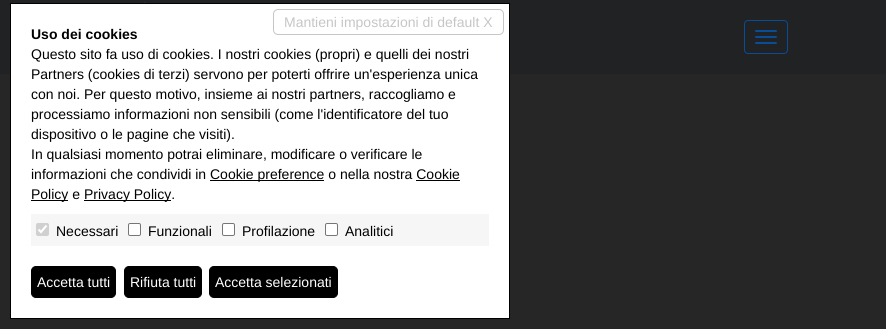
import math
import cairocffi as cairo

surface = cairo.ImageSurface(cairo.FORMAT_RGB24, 886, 329)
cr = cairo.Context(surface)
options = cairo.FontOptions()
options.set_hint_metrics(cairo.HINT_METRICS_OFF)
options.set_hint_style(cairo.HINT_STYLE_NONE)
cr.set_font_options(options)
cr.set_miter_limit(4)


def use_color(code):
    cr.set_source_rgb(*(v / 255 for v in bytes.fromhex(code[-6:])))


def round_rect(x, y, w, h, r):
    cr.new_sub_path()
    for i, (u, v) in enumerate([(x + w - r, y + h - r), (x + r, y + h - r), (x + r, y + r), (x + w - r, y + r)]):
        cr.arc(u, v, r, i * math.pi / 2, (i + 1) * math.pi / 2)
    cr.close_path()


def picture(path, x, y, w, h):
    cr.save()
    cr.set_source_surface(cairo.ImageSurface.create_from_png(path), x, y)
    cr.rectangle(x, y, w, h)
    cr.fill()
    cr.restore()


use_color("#262626")
cr.paint()
use_color("#212223")
cr.rectangle(0, 0, 886, 74)
cr.fill()
picture("img1.png", 143, 2, 3, 1)
round_rect(744.5, 20.5, 43, 33, 3.5)
use_color("#094c97")
cr.set_line_width(1)
cr.stroke()
round_rect(755, 30, 22, 2, 1)
cr.fill()
round_rect(755, 36, 22, 2, 1)
cr.fill()
round_rect(755, 42, 22, 2, 1)
cr.fill()
use_color("#ffffff")
cr.rectangle(10.5, 3.5, 499, 315)
cr.fill_preserve()
use_color("#000000")
cr.stroke()
round_rect(273.5, 9.5, 230, 25, 4.5)
use_color("#c6c6c6")
cr.stroke()
cr.select_font_face("Liberation Sans")
cr.set_font_size(14)
cr.move_to(284, 27)
cr.show_text("Mantieni impostazioni di default X")
cr.select_font_face("Liberation Sans", cairo.FONT_SLANT_NORMAL, cairo.FONT_WEIGHT_BOLD)
use_color("#000000")
cr.move_to(31, 39)
cr.show_text("Uso dei cookies")
cr.select_font_face("Liberation Sans")
cr.move_to(31, 59)
cr.show_text("Questo sito fa uso di cookies. I nostri cookies (propri) e quelli dei nostri")
cr.move_to(31, 79)
cr.show_text("Partners (cookies di terzi) servono per poterti offrire un'esperienza unica")
cr.move_to(31, 99)
cr.show_text("con noi. Per questo motivo, insieme ai nostri partners, raccogliamo e")
cr.move_to(31, 119)
cr.show_text("processiamo informazioni non sensibili (come l'identificatore del tuo")
cr.move_to(31, 139)
cr.show_text("dispositivo o le pagine che visiti).")
cr.move_to(31, 159)
cr.show_text("In qualsiasi momento potrai eliminare, modificare o verificare le")
cr.move_to(31, 179)
cr.show_text("informazioni che condividi in")
cr.rectangle(210, 180, 114, 1)
cr.fill()
cr.move_to(210, 179)
cr.show_text("Cookie preference o nella nostra Cookie")
cr.rectangle(31, 200, 37, 1)
cr.fill()
cr.move_to(31, 199)
cr.show_text("Policy e")
cr.rectangle(416, 180, 44, 1)
cr.fill()
cr.rectangle(84, 200, 87, 1)
cr.fill()
cr.move_to(84, 199)
cr.show_text("Privacy Policy.")
use_color("#f6f6f6")
cr.rectangle(31, 214, 458, 32)
cr.fill()
use_color("#d0d0d0")
round_rect(36, 223, 13, 13, 2)
cr.fill()
cr.new_path()
cr.move_to(38.5, 229.5)
cr.line_to(41, 232)
cr.line_to(46.5, 225.5)
use_color("#ffffff")
cr.set_line_width(2.1)
cr.stroke()
use_color("#000000")
cr.move_to(56, 236)
cr.show_text("Necessari")
use_color("#ffffff")
round_rect(128.5, 223.5, 12, 12, 1.5)
cr.fill_preserve()
use_color("#767676")
cr.set_line_width(1)
cr.stroke()
use_color("#000000")
cr.move_to(148, 236)
cr.show_text("Funzionali")
use_color("#ffffff")
round_rect(222.5, 223.5, 12, 12, 1.5)
cr.fill_preserve()
use_color("#767676")
cr.stroke()
use_color("#000000")
cr.move_to(242, 236)
cr.show_text("Profilazione")
use_color("#ffffff")
round_rect(325.5, 223.5, 12, 12, 1.5)
cr.fill_preserve()
use_color("#767676")
cr.stroke()
use_color("#000000")
cr.move_to(345, 236)
cr.show_text("Analitici")
round_rect(31.5, 266.5, 84, 31, 4.5)
cr.fill_preserve()
cr.stroke()
use_color("#ffffff")
cr.move_to(37, 287)
cr.show_text("Accetta tutti")
use_color("#000000")
round_rect(124.5, 266.5, 77, 31, 4.5)
cr.fill_preserve()
cr.stroke()
use_color("#ffffff")
cr.move_to(130, 287)
cr.show_text("Rifiuta tutti")
use_color("#000000")
round_rect(209.5, 266.5, 128, 31, 4.5)
cr.fill_preserve()
cr.stroke()
use_color("#ffffff")
cr.move_to(215, 287)
cr.show_text("Accetta selezionati")
surface.write_to_png("result.png")
